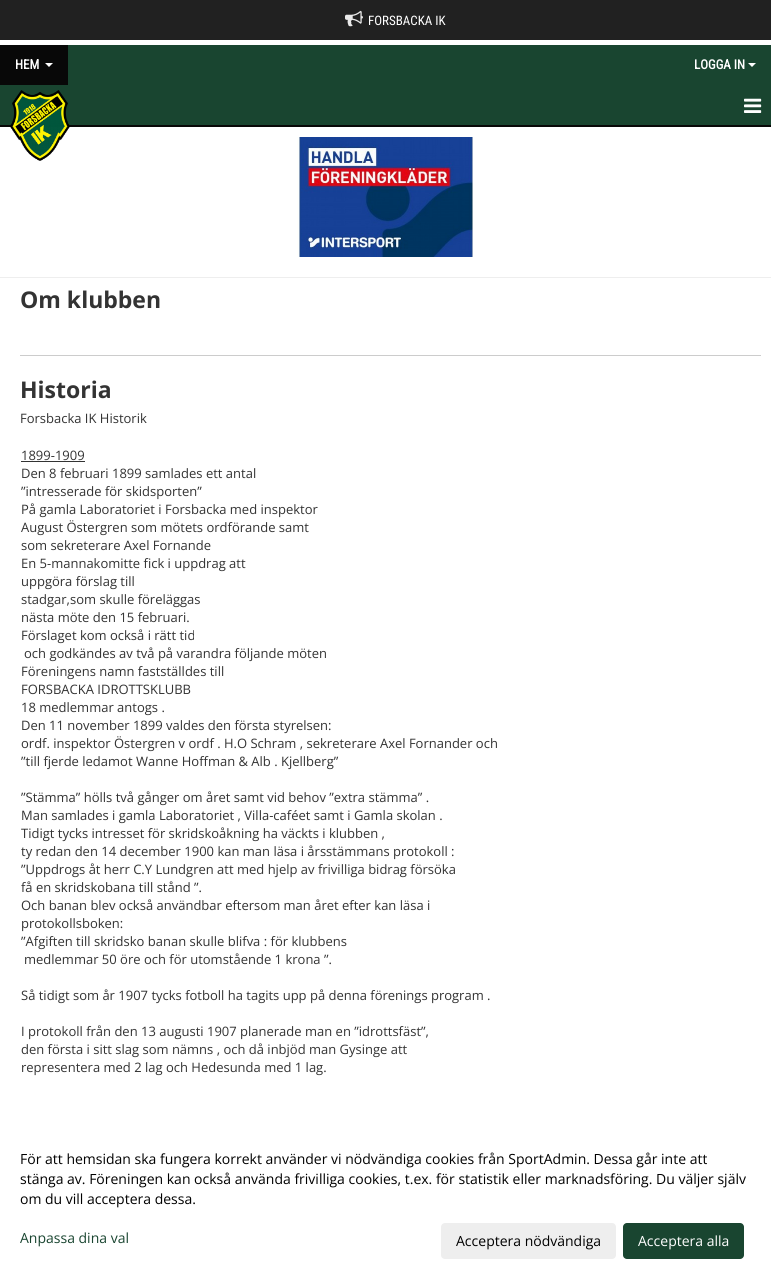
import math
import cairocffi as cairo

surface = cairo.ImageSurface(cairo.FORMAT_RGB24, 771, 1279)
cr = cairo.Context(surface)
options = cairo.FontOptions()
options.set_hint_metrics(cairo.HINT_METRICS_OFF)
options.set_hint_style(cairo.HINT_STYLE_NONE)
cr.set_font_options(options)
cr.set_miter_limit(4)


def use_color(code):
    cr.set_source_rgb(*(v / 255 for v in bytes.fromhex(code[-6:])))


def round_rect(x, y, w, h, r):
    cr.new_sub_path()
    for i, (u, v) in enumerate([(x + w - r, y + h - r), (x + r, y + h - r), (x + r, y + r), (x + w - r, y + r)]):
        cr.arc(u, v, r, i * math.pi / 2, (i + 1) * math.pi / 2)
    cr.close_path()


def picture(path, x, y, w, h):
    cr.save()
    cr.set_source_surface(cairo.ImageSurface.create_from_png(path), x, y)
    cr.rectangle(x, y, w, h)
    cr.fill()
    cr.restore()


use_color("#ffffff")
cr.paint()
use_color("#212121")
cr.rectangle(0, 0, 771, 40)
cr.fill()
picture("img1.png", 345, 10, 18, 17)
cr.select_font_face("Roboto Condensed")
cr.set_font_size(13)
use_color("#ffffff")
cr.move_to(368, 25)
cr.show_text("FORSBACKA IK")
use_color("#194530")
cr.rectangle(68, 45, 703, 40)
cr.fill()
use_color("#080808")
cr.rectangle(0, 45, 68, 40)
cr.fill()
cr.select_font_face("Roboto Condensed", cairo.FONT_SLANT_NORMAL, cairo.FONT_WEIGHT_BOLD)
use_color("#ffffff")
cr.move_to(15, 69)
cr.show_text("HEM")
cr.new_path()
cr.move_to(45, 63)
cr.line_to(53, 63)
cr.line_to(49, 67)
cr.close_path()
cr.fill()
cr.move_to(694, 69)
cr.show_text("LOGGA IN")
cr.new_path()
cr.move_to(748, 63)
cr.line_to(756, 63)
cr.line_to(752, 67)
cr.close_path()
cr.fill()
use_color("#194530")
cr.rectangle(0, 85, 771, 40)
cr.fill()
use_color("#080808")
cr.rectangle(0, 125, 771, 2)
cr.fill()
picture("img2.png", 10, 90, 60, 71)
picture("img3.png", 744, 98, 18, 15)
picture("img4.png", 297, 137, 176, 120)
use_color("#eeeeee")
cr.rectangle(0, 277, 771, 1)
cr.fill()
cr.select_font_face("Open Sans", cairo.FONT_SLANT_NORMAL, cairo.FONT_WEIGHT_BOLD)
cr.set_font_size(23)
use_color("#333333")
cr.move_to(20, 308)
cr.show_text("Om klubben")
use_color("#cccccc")
cr.rectangle(20, 355, 741, 1)
cr.fill()
use_color("#333333")
cr.move_to(20, 398)
cr.show_text("Historia")
cr.select_font_face("Open Sans")
cr.set_font_size(13)
cr.move_to(20, 423)
cr.show_text("Forsbacka IK Historik")
cr.move_to(21, 460)
cr.show_text("1899-1909")
cr.rectangle(21, 461, 64, 1)
cr.fill()
cr.move_to(21, 478)
cr.show_text("Den 8 februari 1899 samlades ett antal")
cr.move_to(21, 496)
cr.show_text("”intresserade för skidsporten”")
cr.move_to(21, 514)
cr.show_text("På gamla Laboratoriet i Forsbacka med inspektor")
cr.move_to(21, 532)
cr.show_text("August Östergren som mötets ordförande samt")
cr.move_to(21, 550)
cr.show_text("som sekreterare Axel Fornande")
cr.move_to(21, 568)
cr.show_text("En 5-mannakomitte fick i uppdrag att")
cr.move_to(21, 586)
cr.show_text("uppgöra förslag till")
cr.move_to(21, 604)
cr.show_text("stadgar,som skulle föreläggas")
cr.move_to(21, 622)
cr.show_text("nästa möte den 15 februari.")
cr.move_to(21, 640)
cr.show_text("Förslaget kom också i rätt tid")
cr.move_to(24, 658)
cr.show_text("och godkändes av två på varandra följande möten")
cr.move_to(21, 676)
cr.show_text("Föreningens namn fastställdes till")
cr.move_to(21, 694)
cr.show_text("FORSBACKA IDROTTSKLUBB")
cr.move_to(21, 712)
cr.show_text("18 medlemmar antogs .")
cr.move_to(21, 730)
cr.show_text("Den 11 november 1899 valdes den första styrelsen:")
cr.move_to(21, 748)
cr.show_text("ordf. inspektor Östergren v ordf . H.O Schram , sekreterare Axel Fornander och")
cr.move_to(21, 766)
cr.show_text("”till fjerde ledamot Wanne Hoffman & Alb . Kjellberg”")
cr.move_to(21, 802)
cr.show_text("”Stämma” hölls två gånger om året samt vid behov ”extra stämma” .")
cr.move_to(21, 820)
cr.show_text("Man samlades i gamla Laboratoriet , Villa-caféet samt i Gamla skolan .")
cr.move_to(21, 838)
cr.show_text("Tidigt tycks intresset för skridskoåkning ha väckts i klubben ,")
cr.move_to(21, 856)
cr.show_text("ty redan den 14 december 1900 kan man läsa i årsstämmans protokoll :")
cr.move_to(21, 874)
cr.show_text("”Uppdrogs åt herr C.Y Lundgren att med hjelp av frivilliga bidrag försöka")
cr.move_to(21, 892)
cr.show_text("få en skridskobana till stånd ”.")
cr.move_to(21, 910)
cr.show_text("Och banan blev också användbar eftersom man året efter kan läsa i")
cr.move_to(21, 928)
cr.show_text("protokollsboken:")
cr.move_to(21, 946)
cr.show_text("”Afgiften till skridsko banan skulle blifva : för klubbens")
cr.move_to(24, 964)
cr.show_text("medlemmar 50 öre och för utomstående 1 krona ”.")
cr.move_to(21, 1000)
cr.show_text("Så tidigt som år 1907 tycks fotboll ha tagits upp på denna förenings program .")
cr.move_to(21, 1036)
cr.show_text("I protokoll från den 13 augusti 1907 planerade man en ”idrottsfäst”,")
cr.move_to(21, 1054)
cr.show_text("den första i sitt slag som nämns , och då inbjöd man Gysinge att")
cr.move_to(21, 1072)
cr.show_text("representera med 2 lag och Hedesunda med 1 lag.")
cr.set_font_size(14)
use_color("#000000")
cr.move_to(20, 1164)
cr.show_text("För att hemsidan ska fungera korrekt använder vi nödvändiga cookies från SportAdmin. Dessa går inte att")
cr.move_to(20, 1184)
cr.show_text("stänga av. Föreningen kan också använda frivilliga cookies, t.ex. för statistik eller marknadsföring. Du väljer själv")
cr.move_to(20, 1204)
cr.show_text("om du vill acceptera dessa.")
use_color("#194530")
cr.move_to(20, 1243)
cr.show_text("Anpassa dina val")
use_color("#eeeeee")
round_rect(441, 1223, 175, 36, 4)
cr.fill()
use_color("#000000")
cr.move_to(456, 1246)
cr.show_text("Acceptera nödvändiga")
use_color("#194530")
round_rect(623, 1223, 121, 36, 4)
cr.fill()
use_color("#ffffff")
cr.move_to(638, 1246)
cr.show_text("Acceptera alla")
surface.write_to_png("result.png")
